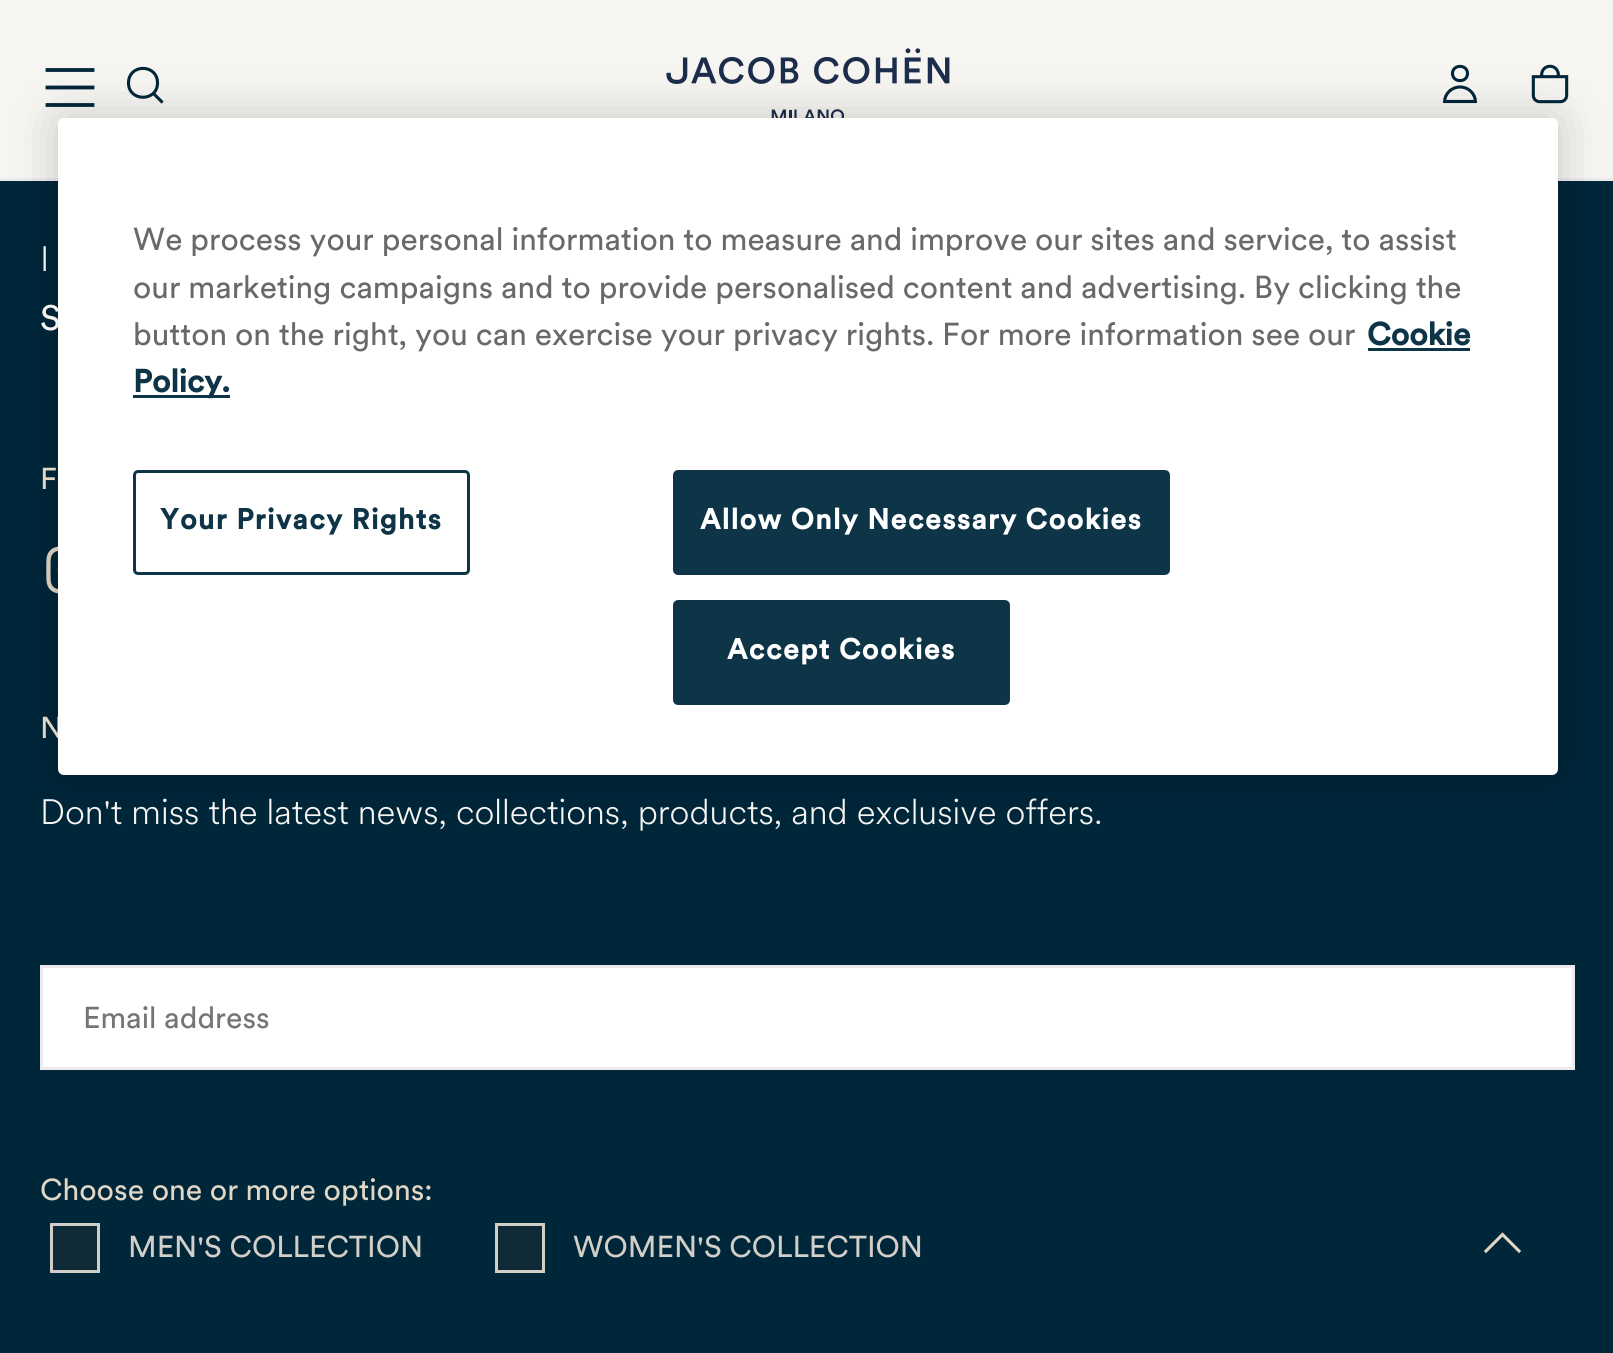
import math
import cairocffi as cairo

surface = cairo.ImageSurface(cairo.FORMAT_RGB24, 1613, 1353)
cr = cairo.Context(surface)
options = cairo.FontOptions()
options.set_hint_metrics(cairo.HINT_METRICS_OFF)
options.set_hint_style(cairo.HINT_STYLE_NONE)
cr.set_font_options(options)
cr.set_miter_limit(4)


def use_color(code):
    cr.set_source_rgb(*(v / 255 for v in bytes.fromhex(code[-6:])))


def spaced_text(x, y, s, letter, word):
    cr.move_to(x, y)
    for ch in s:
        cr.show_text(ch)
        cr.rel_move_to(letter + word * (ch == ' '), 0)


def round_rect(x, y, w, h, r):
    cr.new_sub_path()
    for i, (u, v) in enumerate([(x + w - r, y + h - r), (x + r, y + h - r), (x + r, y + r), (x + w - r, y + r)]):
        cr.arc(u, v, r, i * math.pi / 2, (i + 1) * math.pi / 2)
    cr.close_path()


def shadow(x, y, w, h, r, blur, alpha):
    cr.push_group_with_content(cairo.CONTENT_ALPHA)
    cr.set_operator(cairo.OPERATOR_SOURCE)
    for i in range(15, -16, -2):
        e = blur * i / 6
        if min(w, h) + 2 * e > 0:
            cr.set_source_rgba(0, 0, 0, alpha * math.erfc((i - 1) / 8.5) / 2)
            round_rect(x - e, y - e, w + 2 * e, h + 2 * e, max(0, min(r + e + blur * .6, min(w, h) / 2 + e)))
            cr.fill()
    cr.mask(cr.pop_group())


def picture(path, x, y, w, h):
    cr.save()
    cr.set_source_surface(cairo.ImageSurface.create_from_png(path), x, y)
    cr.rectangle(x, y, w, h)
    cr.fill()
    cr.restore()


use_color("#00263a")
cr.paint()
use_color("#f7f5f2")
cr.rectangle(0, 0, 1613, 178)
cr.fill()
use_color("#ebebeb")
cr.rectangle(0, 178, 1613, 3)
cr.fill()
cr.new_path()
cr.move_to(47.5, 87.5)
cr.line_to(92.5, 87.5)
cr.move_to(47.5, 70)
cr.line_to(92.5, 70)
cr.move_to(47.5, 105)
cr.line_to(92.5, 105)
use_color("#00263a")
cr.set_line_width(3.8)
cr.set_line_cap(cairo.LINE_CAP_SQUARE)
cr.stroke()
cr.new_path()
cr.move_to(161.5, 101.5)
cr.line_to(153.5, 93.5)
cr.move_to(157.5, 83)
cr.curve_to(157.5, 102, 128.5, 102, 128.5, 83)
cr.curve_to(128.5, 63.5, 157.5, 63.5, 157.5, 83)
cr.close_path()
cr.set_line_width(3.1)
cr.stroke()
picture("img1.png", 666, 48, 284, 70)
cr.new_path()
cr.move_to(1467.5, 73.5)
cr.curve_to(1467.5, 83, 1452.5, 83, 1452.5, 73.5)
cr.curve_to(1452.5, 64, 1467.5, 64, 1467.5, 73.5)
cr.close_path()
cr.move_to(1460, 87)
cr.curve_to(1451.5, 87, 1445, 93.5, 1444.5, 101.5)
cr.line_to(1475.5, 101.5)
cr.curve_to(1475, 93.5, 1468.5, 87, 1460, 87)
cr.close_path()
cr.set_line_cap(cairo.LINE_CAP_BUTT)
cr.stroke()
picture("img2.png", 1531, 64, 38, 40)
picture("img3.png", 46, 546, 12, 48)
use_color("#000000")
shadow(58, 118, 1500, 657, 6, 22.5, 0.2)
cr.select_font_face("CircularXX")
cr.set_font_size(35)
use_color("#f7f5f2")
cr.move_to(40, 330)
cr.show_text("S")
cr.set_font_size(30)
use_color("#e1d7c6")
spaced_text(40, 738, "N", 4, 0)
use_color("#ffffff")
round_rect(58, 118, 1500, 657, 6)
cr.fill()
cr.set_font_size(31.5)
use_color("#696969")
cr.move_to(133, 250)
cr.show_text("We process your personal information to measure and improve our sites and service, to assist")
cr.move_to(133, 298)
cr.show_text("our marketing campaigns and to provide personalised content and advertising. By clicking the")
cr.move_to(133, 345)
cr.show_text("button on the right, you can exercise your privacy rights. For more information see our")
cr.select_font_face("CircularXX", cairo.FONT_SLANT_NORMAL, cairo.FONT_WEIGHT_BOLD)
use_color("#0e3448")
cr.move_to(1367, 345)
cr.show_text("Cookie")
cr.rectangle(1368, 348, 102, 3)
cr.fill()
cr.rectangle(133, 395, 97, 3)
cr.fill()
cr.move_to(133, 392)
cr.show_text("Policy.")
round_rect(134.5, 471.5, 334, 102, 3.5)
cr.set_line_width(3)
cr.stroke()
cr.set_font_size(28.5)
spaced_text(160, 529, "Your Privacy Rights", 1.4, 0)
round_rect(674.5, 471.5, 494, 102, 3.5)
cr.fill_preserve()
cr.stroke()
use_color("#ffffff")
spaced_text(700, 529, "Allow Only Necessary Cookies", 1.4, 0)
use_color("#0e3448")
round_rect(674.5, 601.5, 334, 102, 3.5)
cr.fill_preserve()
cr.stroke()
use_color("#ffffff")
spaced_text(727, 659, "Accept Cookies", 1.4, 0)
cr.select_font_face("CircularXX Light")
cr.set_font_size(35)
use_color("#f7f5f2")
spaced_text(40, 271, "I", 4, 0)
cr.select_font_face("CircularXX")
cr.set_font_size(30)
use_color("#e1d7c6")
spaced_text(40, 489, "F", 4, 0)
cr.select_font_face("CircularXX Light")
cr.set_font_size(35)
use_color("#f7f5f2")
cr.move_to(40, 824)
cr.show_text("Don't miss the latest news, collections, products, and exclusive offers.")
use_color("#ffffff")
cr.rectangle(41.5, 966.5, 1532, 102)
cr.fill_preserve()
use_color("#ebebeb")
cr.stroke()
cr.select_font_face("CircularXX")
cr.set_font_size(30)
use_color("#757575")
cr.move_to(83, 1028)
cr.show_text("Email address")
use_color("#e1d7c6")
cr.move_to(40, 1200)
cr.show_text("Choose one or more options:")
use_color("#0f2b38")
cr.rectangle(51.5, 1224.5, 47, 47)
cr.fill_preserve()
use_color("#d2cec8")
cr.stroke()
cr.move_to(128, 1257)
cr.show_text("MEN'S COLLECTION")
use_color("#0f2b38")
cr.rectangle(496.5, 1224.5, 47, 47)
cr.fill_preserve()
use_color("#d2cec8")
cr.stroke()
cr.move_to(573, 1257)
cr.show_text("WOMEN'S COLLECTION")
cr.new_path()
cr.move_to(1486, 1251)
cr.line_to(1502.5, 1234.5)
cr.line_to(1519, 1251)
use_color("#e1d7c6")
cr.set_line_width(3.1)
cr.set_line_cap(cairo.LINE_CAP_SQUARE)
cr.stroke()
surface.write_to_png("result.png")
